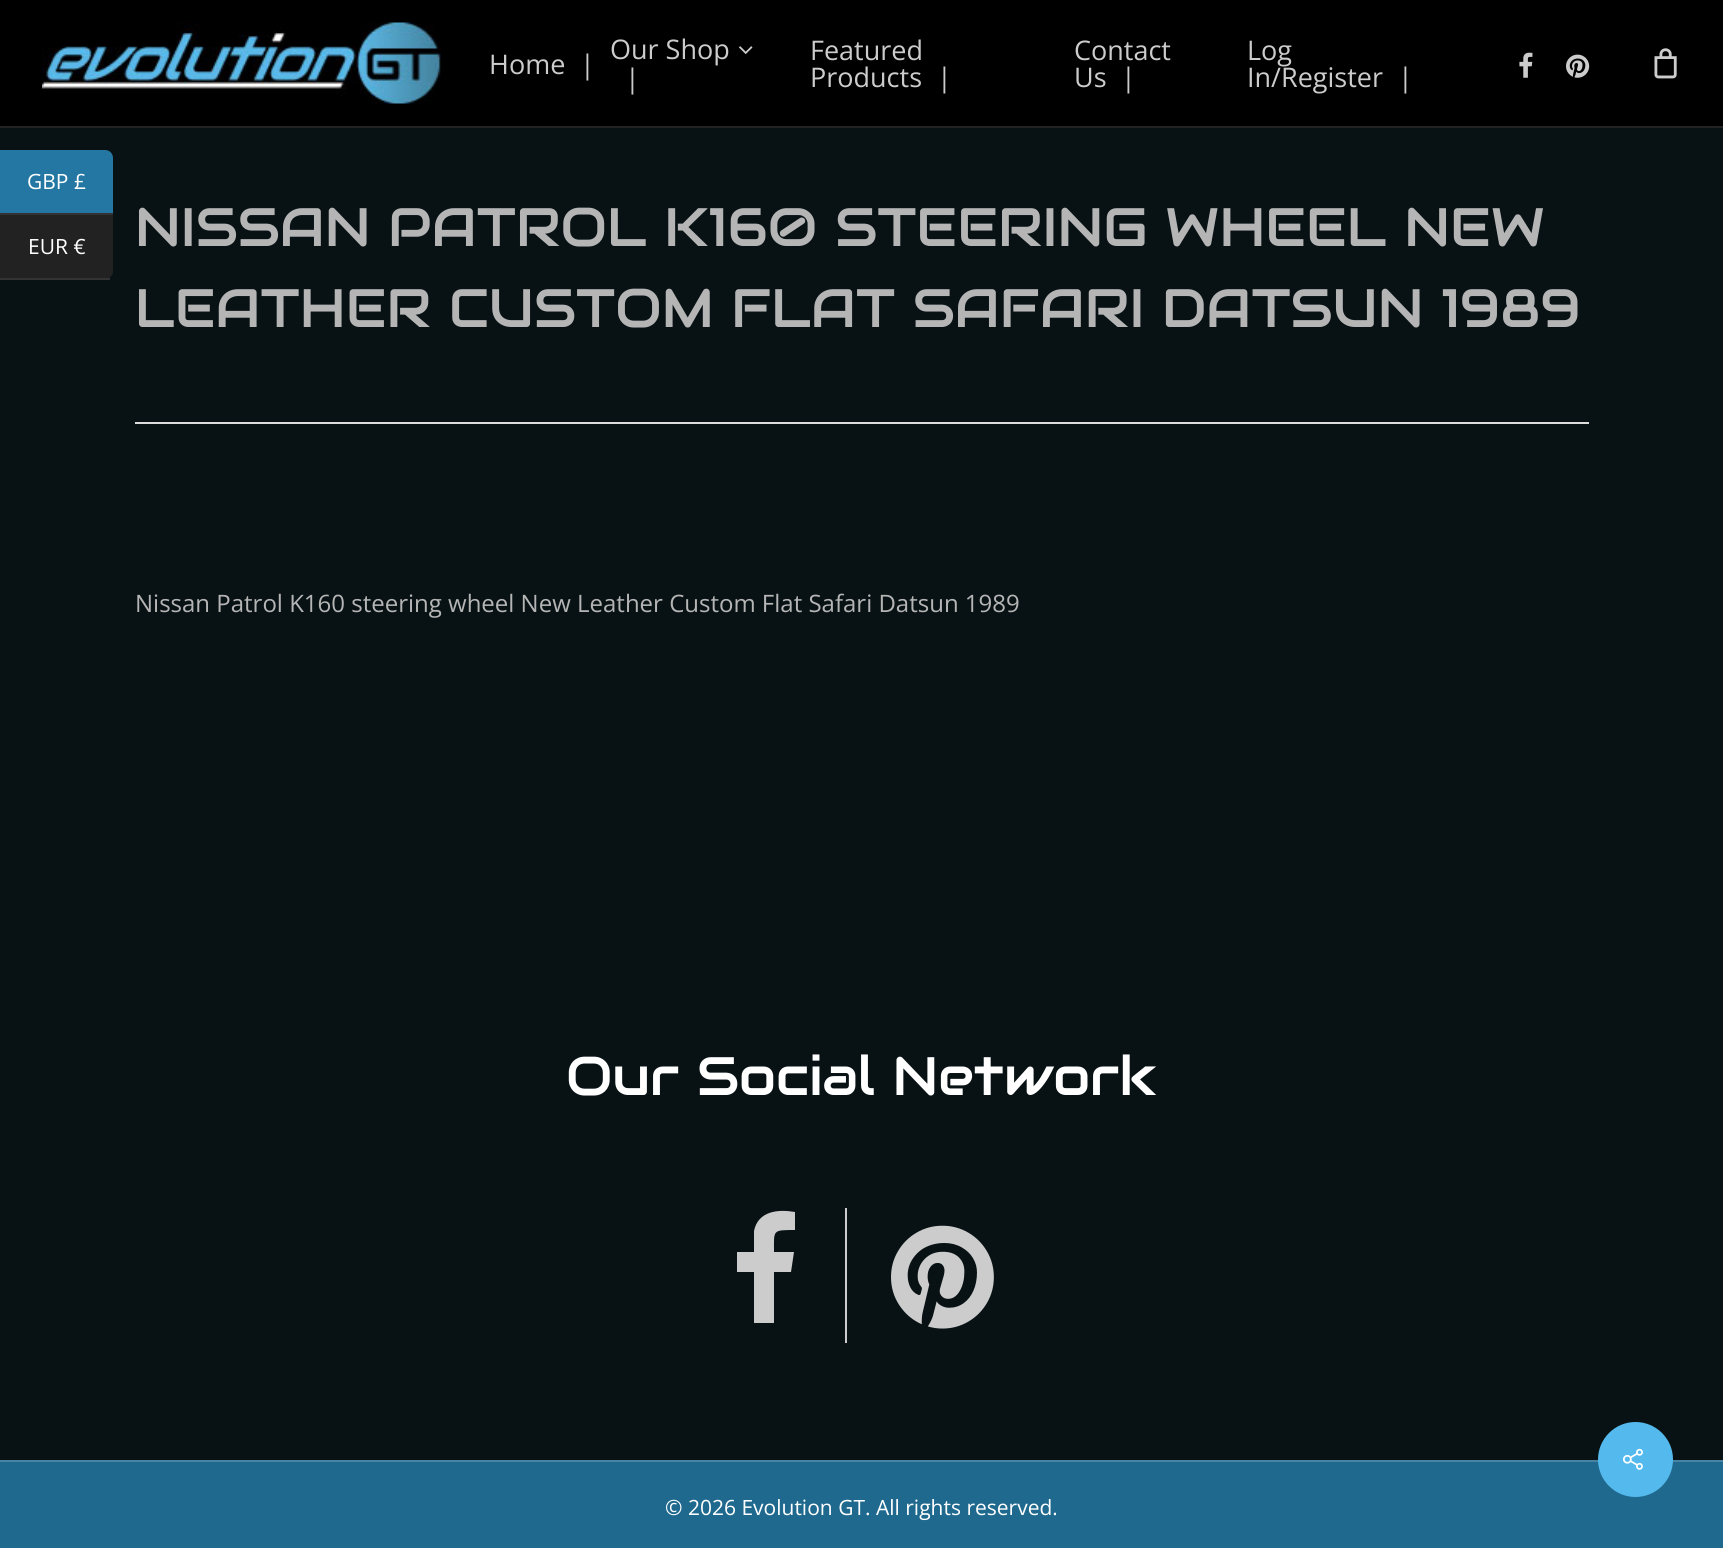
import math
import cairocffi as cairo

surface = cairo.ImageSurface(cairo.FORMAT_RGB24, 1723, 1548)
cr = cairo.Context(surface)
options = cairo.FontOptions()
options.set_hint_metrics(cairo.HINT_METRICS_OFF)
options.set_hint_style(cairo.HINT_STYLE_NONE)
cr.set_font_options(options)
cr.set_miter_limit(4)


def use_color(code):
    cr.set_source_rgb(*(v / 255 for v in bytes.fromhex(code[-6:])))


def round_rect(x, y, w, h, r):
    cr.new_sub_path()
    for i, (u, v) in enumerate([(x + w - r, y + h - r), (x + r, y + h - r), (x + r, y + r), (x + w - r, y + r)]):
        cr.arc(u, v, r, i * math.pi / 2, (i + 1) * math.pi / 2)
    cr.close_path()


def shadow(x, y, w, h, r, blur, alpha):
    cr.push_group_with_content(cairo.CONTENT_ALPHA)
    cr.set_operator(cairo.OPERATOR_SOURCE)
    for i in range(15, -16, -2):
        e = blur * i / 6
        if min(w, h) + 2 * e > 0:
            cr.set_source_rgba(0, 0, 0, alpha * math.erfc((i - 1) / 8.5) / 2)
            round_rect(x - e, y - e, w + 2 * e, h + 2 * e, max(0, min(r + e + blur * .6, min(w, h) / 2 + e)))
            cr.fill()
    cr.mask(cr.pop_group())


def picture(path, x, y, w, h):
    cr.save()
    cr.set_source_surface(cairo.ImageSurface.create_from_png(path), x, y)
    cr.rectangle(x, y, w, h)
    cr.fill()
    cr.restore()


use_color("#081214")
cr.paint()
use_color("#cccccc")
cr.new_path()
cr.move_to(795, 1212)
cr.line_to(795, 1230)
cr.curve_to(772, 1230, 774, 1230, 774, 1252)
cr.line_to(794, 1252)
cr.line_to(791, 1272)
cr.line_to(774, 1272)
cr.line_to(774, 1323)
cr.line_to(754, 1323)
cr.line_to(754, 1272)
cr.line_to(737, 1272)
cr.line_to(737, 1252)
cr.line_to(754, 1252)
cr.line_to(754, 1231)
cr.curve_to(758, 1211, 778, 1209, 795, 1212)
cr.close_path()
cr.fill()
cr.rectangle(845, 1208, 2, 135)
cr.fill()
picture("img6.png", 891, 1225, 103, 104)
use_color("#081214")
shadow(45, 276, 1634, 728, 0, 82.5, 1)
use_color("#2377a2")
cr.new_path()
cr.move_to(0, 150)
cr.line_to(105, 150)
cr.curve_to(109.5, 150, 113, 153.5, 113, 158)
cr.line_to(113, 215)
cr.line_to(0, 215)
cr.close_path()
cr.fill()
use_color("#333333")
cr.rectangle(0, 213, 113, 2)
cr.fill()
cr.select_font_face("Open Sans")
cr.set_font_size(21)
use_color("#ffffff")
cr.move_to(27, 189)
cr.show_text("GBP £")
use_color("#222222")
cr.new_path()
cr.move_to(0, 215)
cr.line_to(113, 215)
cr.line_to(113, 271)
cr.curve_to(113, 275.5, 109.5, 279, 105, 279)
cr.line_to(0, 279)
cr.close_path()
cr.fill()
use_color("#333333")
cr.rectangle(0, 278, 110, 2)
cr.fill()
use_color("#ffffff")
cr.move_to(28, 254)
cr.show_text("EUR €")
use_color("#000000")
cr.rectangle(0, 0, 1723, 126)
cr.fill()
use_color("#222222")
cr.rectangle(0, 126, 1723, 2)
cr.fill()
picture("img1.png", 42, 22, 399, 82)
cr.set_font_size(27)
use_color("#cccccc")
cr.move_to(489, 74)
cr.show_text("Home")
cr.move_to(580, 74)
cr.show_text("|")
cr.move_to(610, 59)
cr.show_text("Our Shop")
picture("img2.png", 739, 46, 14, 8)
cr.move_to(625, 88)
cr.show_text("|")
cr.move_to(810, 60)
cr.show_text("Featured")
cr.move_to(810, 87)
cr.show_text("Products")
cr.move_to(937, 87)
cr.show_text("|")
cr.move_to(1074, 60)
cr.show_text("Contact")
cr.move_to(1074, 87)
cr.show_text("Us")
cr.move_to(1121, 87)
cr.show_text("|")
cr.move_to(1247, 60)
cr.show_text("Log")
cr.move_to(1247, 87)
cr.show_text("In/Register")
cr.move_to(1398, 87)
cr.show_text("|")
picture("img3.png", 1519, 52, 14, 26)
picture("img4.png", 1566, 54, 24, 24)
picture("img5.png", 1654, 48, 23, 31)
use_color("#dddddd")
cr.rectangle(135, 422, 1454, 2)
cr.fill()
cr.select_font_face("Audiowide")
cr.set_font_size(54)
use_color("#b5b5b5")
cr.move_to(135, 246)
cr.show_text("NISSAN PATROL K160 STEERING WHEEL NEW")
cr.move_to(135, 327)
cr.show_text("LEATHER CUSTOM FLAT SAFARI DATSUN 1989")
cr.select_font_face("Open Sans")
cr.set_font_size(24)
cr.move_to(135, 612)
cr.show_text("Nissan Patrol K160 steering wheel New Leather Custom Flat Safari Datsun 1989")
cr.select_font_face("Audiowide")
cr.set_font_size(54)
use_color("#ffffff")
cr.move_to(566, 1095)
cr.show_text("Our Social Network")
use_color("#1f698f")
cr.rectangle(0, 1462, 1723, 86)
cr.fill()
use_color("#4784a3")
cr.rectangle(0, 1460, 1723, 2)
cr.fill()
cr.select_font_face("Open Sans")
cr.set_font_size(21)
use_color("#ffffff")
cr.move_to(665, 1515)
cr.show_text("© 2026 Evolution GT. All rights reserved.")
use_color("#54b9ec")
cr.new_path()
cr.arc(1635.5, 1459.5, 37.5, 0, 2 * math.pi)
cr.fill()
picture("img7.png", 1623, 1448, 20, 22)
surface.write_to_png("result.png")
